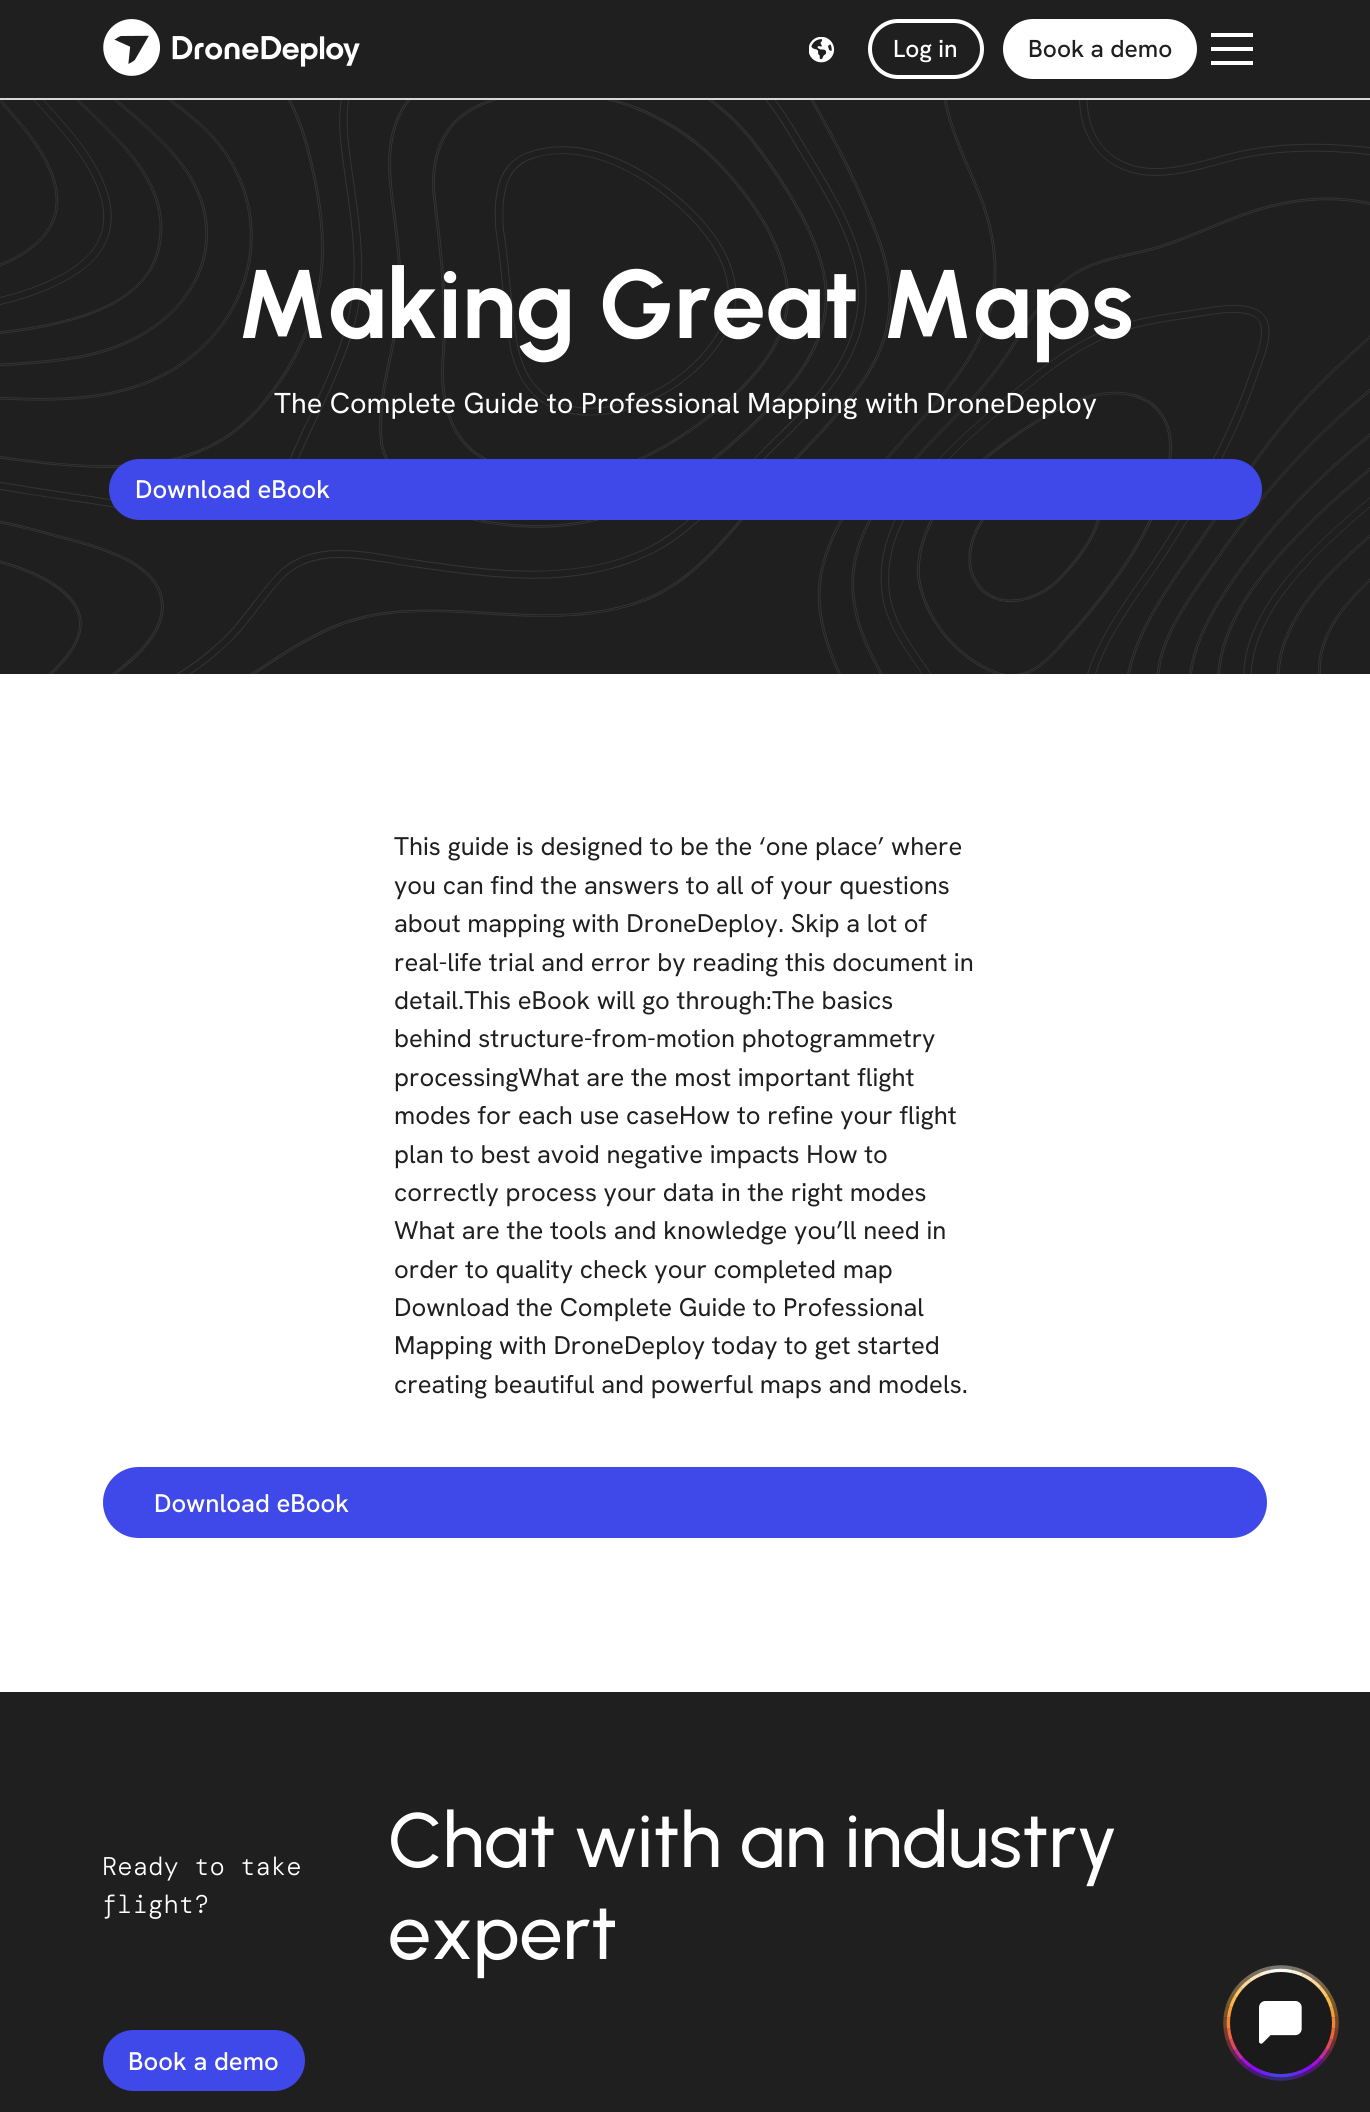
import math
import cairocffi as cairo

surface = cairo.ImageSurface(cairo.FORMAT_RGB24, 1370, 2112)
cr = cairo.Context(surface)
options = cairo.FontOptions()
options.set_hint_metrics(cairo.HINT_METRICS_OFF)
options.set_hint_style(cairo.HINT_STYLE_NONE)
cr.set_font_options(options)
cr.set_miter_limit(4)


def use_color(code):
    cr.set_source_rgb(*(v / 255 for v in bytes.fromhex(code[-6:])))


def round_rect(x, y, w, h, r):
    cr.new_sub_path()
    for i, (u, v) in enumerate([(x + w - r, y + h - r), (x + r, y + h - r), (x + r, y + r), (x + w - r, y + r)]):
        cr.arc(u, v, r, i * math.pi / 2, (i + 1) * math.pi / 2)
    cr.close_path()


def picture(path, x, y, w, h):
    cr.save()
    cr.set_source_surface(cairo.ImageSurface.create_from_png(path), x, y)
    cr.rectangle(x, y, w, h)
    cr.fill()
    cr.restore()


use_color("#ffffff")
cr.paint()
use_color("#1f1f1f")
cr.rectangle(0, 0, 1370, 98)
cr.fill()
use_color("#d7d7d7")
cr.rectangle(0, 98, 1370, 2)
cr.fill()
picture("img1.png", 103, 19, 257, 57)
picture("img2.png", 809, 37, 26, 26)
round_rect(870, 21, 112, 56, 28)
use_color("#ffffff")
cr.set_line_width(4)
cr.stroke()
cr.select_font_face("Hanken Grotesk Medium")
cr.set_font_size(24.5)
cr.move_to(893, 57)
cr.show_text("Log in")
round_rect(1003, 19, 194, 60, 30)
cr.fill()
use_color("#1f1f1f")
cr.move_to(1028, 57)
cr.show_text("Book a demo")
use_color("#ffffff")
cr.rectangle(1211, 33, 42, 4)
cr.fill()
cr.rectangle(1211, 47, 42, 4)
cr.fill()
cr.rectangle(1211, 61, 42, 4)
cr.fill()
use_color("#1f1f1f")
cr.rectangle(0, 100, 1370, 574)
cr.fill()
picture("img3.png", 0, 100, 1370, 574)
cr.select_font_face("Urbanist", cairo.FONT_SLANT_NORMAL, cairo.FONT_WEIGHT_BOLD)
cr.set_font_size(97.25)
use_color("#ffffff")
cr.move_to(237, 338)
cr.show_text("Making Great Maps")
cr.select_font_face("Hanken Grotesk")
cr.set_font_size(28.8)
cr.move_to(274, 413)
cr.show_text("The Complete Guide to Professional Mapping with DroneDeploy")
use_color("#3f48e9")
round_rect(109, 459, 1153, 61, 30.5)
cr.fill()
cr.select_font_face("Hanken Grotesk Medium")
cr.set_font_size(25.6)
use_color("#ffffff")
cr.move_to(135, 498)
cr.show_text("Download eBook")
cr.select_font_face("Hanken Grotesk")
use_color("#1f1f1f")
cr.move_to(394, 855)
cr.show_text("This guide is designed to be the ‘one place’ where")
cr.move_to(394, 894)
cr.show_text("you can find the answers to all of your questions")
cr.move_to(394, 932)
cr.show_text("about mapping with DroneDeploy. Skip a lot of")
cr.move_to(394, 971)
cr.show_text("real-life trial and error by reading this document in")
cr.move_to(394, 1009)
cr.show_text("detail.This eBook will go through:The basics")
cr.move_to(394, 1047)
cr.show_text("behind structure-from-motion photogrammetry")
cr.move_to(394, 1086)
cr.show_text("processingWhat are the most important flight")
cr.move_to(394, 1124)
cr.show_text("modes for each use caseHow to refine your flight")
cr.move_to(394, 1163)
cr.show_text("plan to best avoid negative impacts How to")
cr.move_to(394, 1201)
cr.show_text("correctly process your data in the right modes")
cr.move_to(394, 1239)
cr.show_text("What are the tools and knowledge you’ll need in")
cr.move_to(394, 1278)
cr.show_text("order to quality check your completed map")
cr.move_to(394, 1316)
cr.show_text("Download the Complete Guide to Professional")
cr.move_to(394, 1354)
cr.show_text("Mapping with DroneDeploy today to get started")
cr.move_to(394, 1393)
cr.show_text("creating beautiful and powerful maps and models.")
use_color("#3f48e9")
round_rect(103, 1467, 1164, 71, 35.5)
cr.fill()
cr.select_font_face("Hanken Grotesk Medium")
use_color("#ffffff")
cr.move_to(154, 1512)
cr.show_text("Download eBook")
use_color("#1f1f1f")
cr.rectangle(0, 1692, 1370, 420)
cr.fill()
cr.select_font_face("DM Mono Light")
use_color("#ffffff")
cr.move_to(102, 1875)
cr.show_text("Ready to take")
cr.move_to(102, 1913)
cr.show_text("flight?")
cr.select_font_face("Urbanist Medium")
cr.set_font_size(76.75)
cr.move_to(388, 1867)
cr.show_text("Chat with an industry")
cr.move_to(388, 1959)
cr.show_text("expert")
use_color("#3f48e9")
round_rect(103, 2030, 202, 61, 30.5)
cr.fill()
cr.select_font_face("Hanken Grotesk Medium")
cr.set_font_size(25.6)
use_color("#ffffff")
cr.move_to(128, 2070)
cr.show_text("Book a demo")
picture("img4.png", 1223, 1965, 116, 116)
picture("img5.png", 1226, 1968, 110, 110)
use_color("#1a1a1a")
cr.arc(1281, 2023, 51, 0, 2 * math.pi)
cr.fill()
picture("img6.png", 1259, 2001, 43, 43)
surface.write_to_png("result.png")
